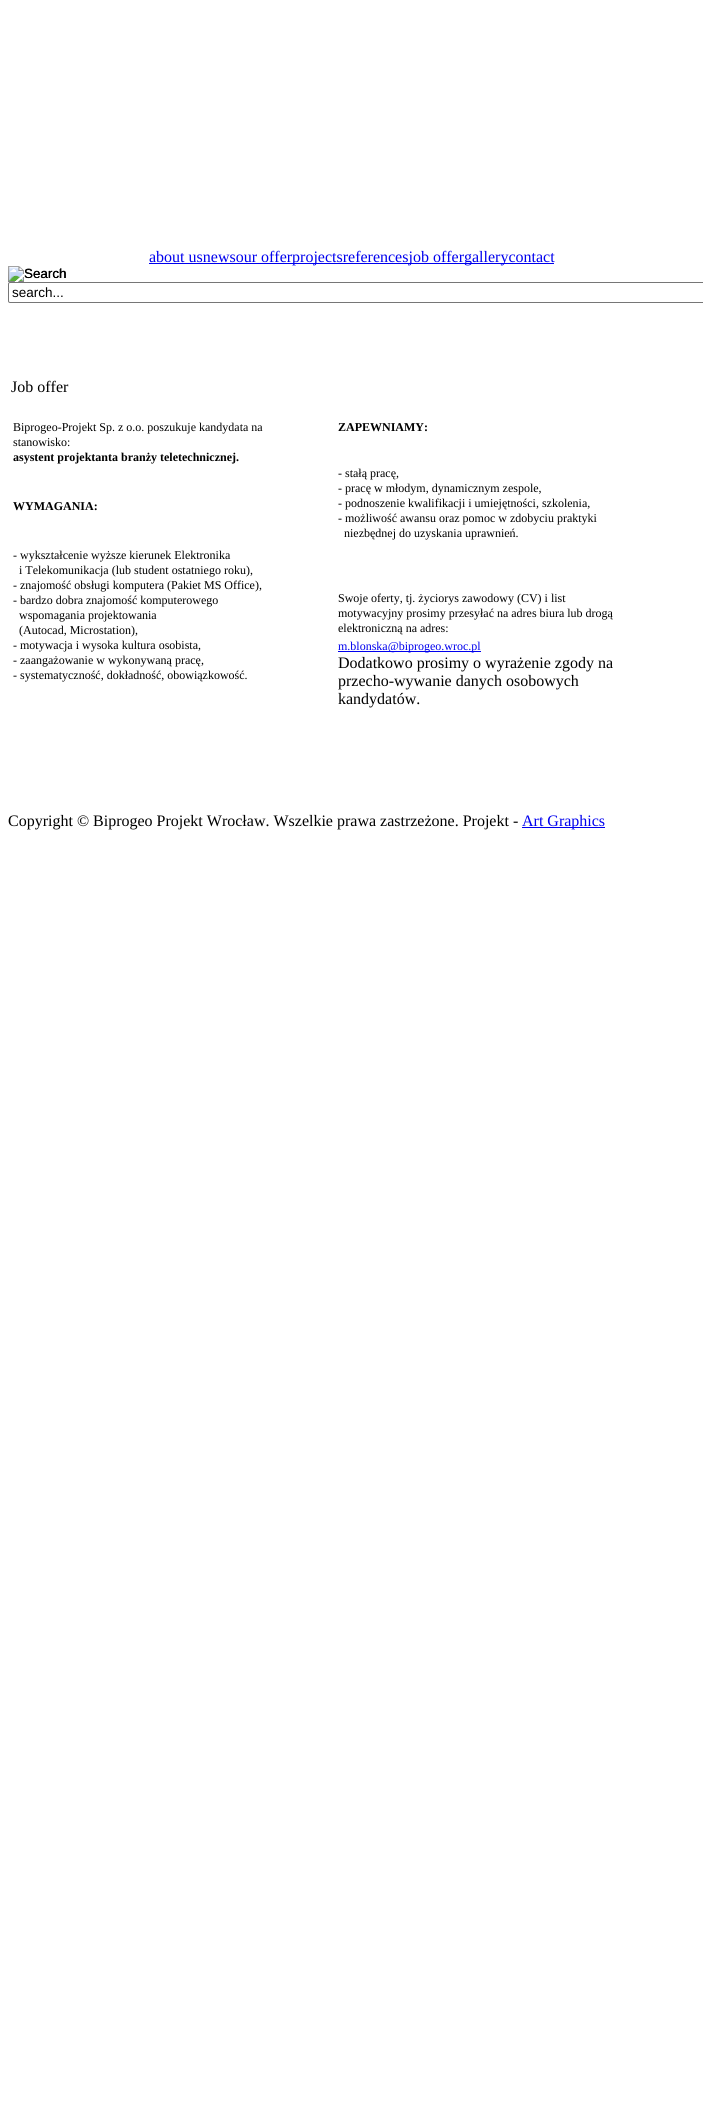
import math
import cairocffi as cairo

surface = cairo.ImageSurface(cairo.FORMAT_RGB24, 703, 2112)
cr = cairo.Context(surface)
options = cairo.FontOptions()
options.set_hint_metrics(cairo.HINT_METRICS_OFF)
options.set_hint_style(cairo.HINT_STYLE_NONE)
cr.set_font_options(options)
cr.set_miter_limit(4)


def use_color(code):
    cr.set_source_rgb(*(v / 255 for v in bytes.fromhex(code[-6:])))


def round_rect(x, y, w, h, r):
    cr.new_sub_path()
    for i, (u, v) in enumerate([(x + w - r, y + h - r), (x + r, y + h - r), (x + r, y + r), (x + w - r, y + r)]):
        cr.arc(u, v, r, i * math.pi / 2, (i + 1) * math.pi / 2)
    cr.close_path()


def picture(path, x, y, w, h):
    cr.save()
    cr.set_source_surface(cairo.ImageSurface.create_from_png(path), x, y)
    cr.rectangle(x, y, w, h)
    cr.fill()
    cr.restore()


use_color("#ffffff")
cr.paint()
use_color("#0000ee")
cr.rectangle(149, 263, 359, 1)
cr.fill()
cr.select_font_face("Liberation Serif")
cr.set_font_size(16)
cr.move_to(149, 262)
cr.show_text("about usnewsour offerprojectsreferencesjob offergallerycontact")
cr.rectangle(508, 263, 46, 1)
cr.fill()
picture("img1.png", 8, 266, 58, 16)
cr.select_font_face("Liberation Sans")
cr.set_font_size(13.5)
use_color("#000000")
cr.move_to(24, 278)
cr.show_text("Search")
round_rect(8.5, 282.5, 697, 20, 1.5)
use_color("#767676")
cr.set_line_width(1)
cr.stroke()
use_color("#000000")
cr.move_to(12, 297)
cr.show_text("search...")
cr.select_font_face("Liberation Serif")
cr.set_font_size(16)
cr.move_to(11, 392)
cr.show_text("Job offer")
cr.set_font_size(12)
cr.move_to(13, 431)
cr.show_text("Biprogeo-Projekt Sp. z o.o. poszukuje kandydata na")
cr.move_to(13, 446)
cr.show_text("stanowisko:")
cr.select_font_face("Liberation Serif", cairo.FONT_SLANT_NORMAL, cairo.FONT_WEIGHT_BOLD)
cr.move_to(13, 461)
cr.show_text("asystent projektanta branży teletechnicznej.")
cr.move_to(13, 510)
cr.show_text("WYMAGANIA:")
cr.select_font_face("Liberation Serif")
cr.move_to(13, 559)
cr.show_text("- wykształcenie wyższe kierunek Elektronika")
cr.move_to(19, 574)
cr.show_text("i Telekomunikacja (lub student ostatniego roku),")
cr.move_to(13, 589)
cr.show_text("- znajomość obsługi komputera (Pakiet MS Office),")
cr.move_to(13, 604)
cr.show_text("- bardzo dobra znajomość komputerowego")
cr.move_to(19, 619)
cr.show_text("wspomagania projektowania")
cr.move_to(19, 634)
cr.show_text("(Autocad, Microstation),")
cr.move_to(13, 649)
cr.show_text("- motywacja i wysoka kultura osobista,")
cr.move_to(13, 664)
cr.show_text("- zaangażowanie w wykonywaną pracę,")
cr.move_to(13, 679)
cr.show_text("- systematyczność, dokładność, obowiązkowość.")
cr.select_font_face("Liberation Serif", cairo.FONT_SLANT_NORMAL, cairo.FONT_WEIGHT_BOLD)
cr.move_to(338, 431)
cr.show_text("ZAPEWNIAMY:")
cr.select_font_face("Liberation Serif")
cr.move_to(338, 477)
cr.show_text("- stałą pracę,")
cr.move_to(338, 492)
cr.show_text("- pracę w młodym, dynamicznym zespole,")
cr.move_to(338, 507)
cr.show_text("- podnoszenie kwalifikacji i umiejętności, szkolenia,")
cr.move_to(338, 522)
cr.show_text("- możliwość awansu oraz pomoc w zdobyciu praktyki")
cr.move_to(344, 537)
cr.show_text("niezbędnej do uzyskania uprawnień.")
cr.move_to(338, 602)
cr.show_text("Swoje oferty, tj. życiorys zawodowy (CV) i list")
cr.move_to(338, 617)
cr.show_text("motywacyjny prosimy przesyłać na adres biura lub drogą")
cr.move_to(338, 632)
cr.show_text("elektroniczną na adres:")
use_color("#0000ee")
cr.rectangle(338, 651, 143, 1)
cr.fill()
cr.move_to(338, 650)
cr.show_text("m.blonska@biprogeo.wroc.pl")
cr.set_font_size(16)
use_color("#000000")
cr.move_to(338, 668)
cr.show_text("Dodatkowo prosimy o wyrażenie zgody na")
cr.move_to(338, 686)
cr.show_text("przecho-wywanie danych osobowych")
cr.move_to(338, 704)
cr.show_text("kandydatów.")
cr.move_to(8, 826)
cr.show_text("Copyright © Biprogeo Projekt Wrocław. Wszelkie prawa zastrzeżone. Projekt -")
use_color("#0000ee")
cr.rectangle(522, 827, 83, 1)
cr.fill()
cr.move_to(522, 826)
cr.show_text("Art Graphics")
surface.write_to_png("result.png")
